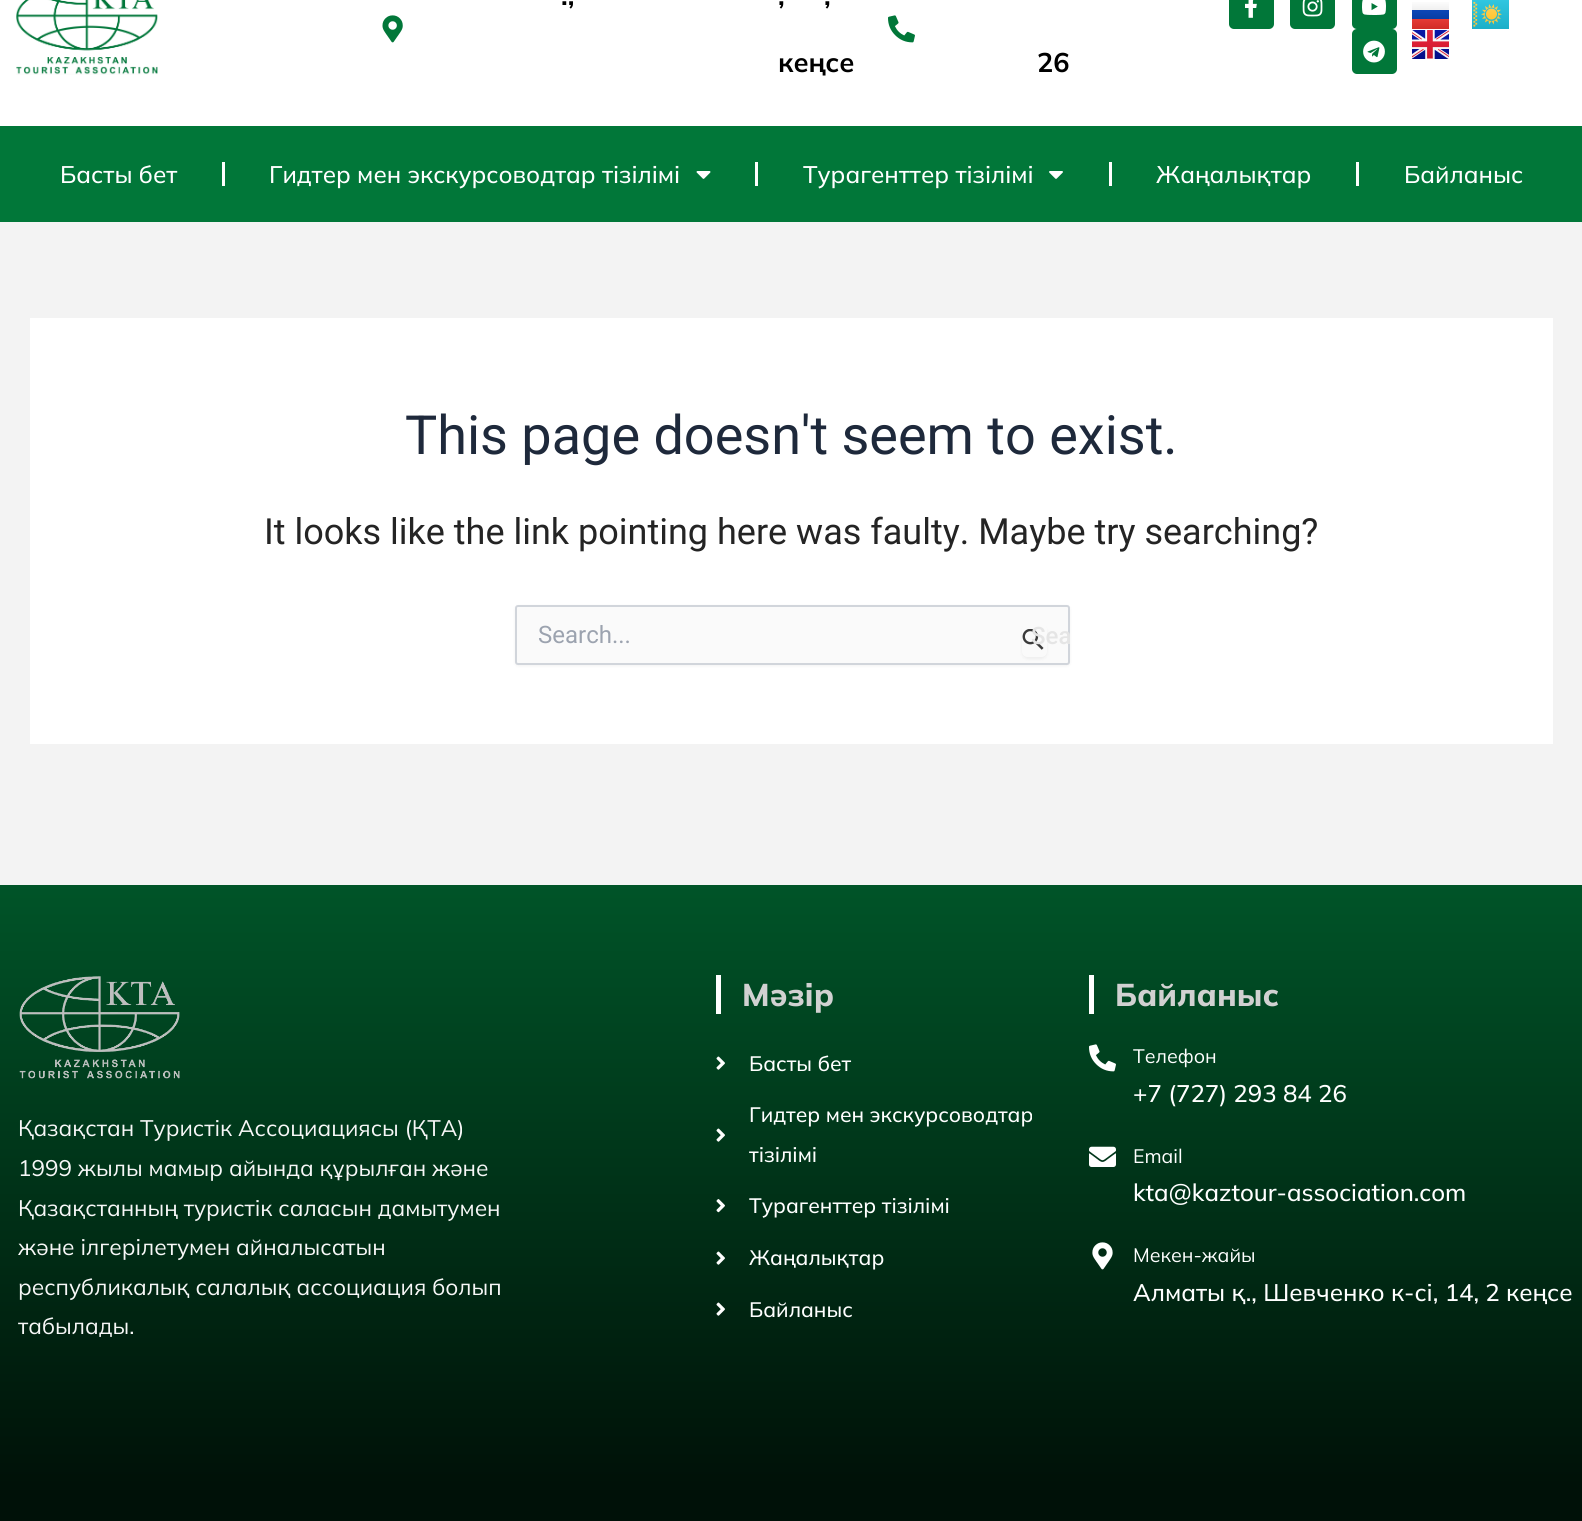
import math
import cairocffi as cairo

surface = cairo.ImageSurface(cairo.FORMAT_RGB24, 1582, 1521)
cr = cairo.Context(surface)
options = cairo.FontOptions()
options.set_hint_metrics(cairo.HINT_METRICS_OFF)
options.set_hint_style(cairo.HINT_STYLE_NONE)
cr.set_font_options(options)
cr.set_miter_limit(4)


def use_color(code):
    cr.set_source_rgb(*(v / 255 for v in bytes.fromhex(code[-6:])))


def round_rect(x, y, w, h, r):
    cr.new_sub_path()
    for i, (u, v) in enumerate([(x + w - r, y + h - r), (x + r, y + h - r), (x + r, y + r), (x + w - r, y + r)]):
        cr.arc(u, v, r, i * math.pi / 2, (i + 1) * math.pi / 2)
    cr.close_path()


def shadow(x, y, w, h, r, blur, alpha):
    cr.push_group_with_content(cairo.CONTENT_ALPHA)
    cr.set_operator(cairo.OPERATOR_SOURCE)
    for i in range(15, -16, -2):
        e = blur * i / 6
        if min(w, h) + 2 * e > 0:
            cr.set_source_rgba(0, 0, 0, alpha * math.erfc((i - 1) / 8.5) / 2)
            round_rect(x - e, y - e, w + 2 * e, h + 2 * e, max(0, min(r + e + blur * .6, min(w, h) / 2 + e)))
            cr.fill()
    cr.mask(cr.pop_group())


def picture(path, x, y, w, h):
    cr.save()
    cr.set_source_surface(cairo.ImageSurface.create_from_png(path), x, y)
    cr.rectangle(x, y, w, h)
    cr.fill()
    cr.restore()


use_color("#f3f3f3")
cr.paint()
use_color("#ffffff")
cr.rectangle(0, 0, 1582, 126)
cr.fill()
picture("img1.png", 16, 0, 142, 75)
picture("img2.png", 382, 15, 21, 28)
cr.select_font_face("Mulish", cairo.FONT_SLANT_NORMAL, cairo.FONT_WEIGHT_BOLD)
cr.set_font_size(27)
use_color("#000000")
cr.move_to(561, 5)
cr.show_text(".,")
cr.move_to(778, 5)
cr.show_text(",")
cr.move_to(824, 5)
cr.show_text(",")
cr.move_to(778, 72)
cr.show_text("кеңсе")
picture("img3.png", 888, 15, 27, 28)
cr.move_to(1037, 72)
cr.show_text("26")
use_color("#017739")
round_rect(1229, -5, 45, 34, 5)
cr.fill()
picture("img4.png", 1245, 0, 12, 18)
round_rect(1290, -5, 45, 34, 5)
cr.fill()
picture("img5.png", 1302, 0, 21, 17)
round_rect(1352, -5, 45, 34, 5)
cr.fill()
picture("img6.png", 1362, 0, 24, 15)
round_rect(1352, 29, 45, 45, 5)
cr.fill()
picture("img7.png", 1363, 40, 22, 23)
gradient = cairo.LinearGradient(1430, 0, 1430, 10)
gradient.add_color_stop_rgba(0, 1, 1, 1, 1)
gradient.add_color_stop_rgba(1, 0.941, 0.941, 0.941, 1)
cr.set_source(gradient)
cr.rectangle(1412, 2, 37, 8)
cr.fill()
gradient = cairo.LinearGradient(1430, 10, 1430, 19)
gradient.add_color_stop_rgba(0, 0.047, 0.278, 0.718, 1)
gradient.add_color_stop_rgba(1, 0.027, 0.239, 0.643, 1)
cr.set_source(gradient)
cr.rectangle(1412, 10, 37, 9)
cr.fill()
gradient = cairo.LinearGradient(1430, 19, 1430, 28)
gradient.add_color_stop_rgba(0, 0.898, 0.231, 0.208, 1)
gradient.add_color_stop_rgba(1, 0.827, 0.18, 0.157, 1)
cr.set_source(gradient)
cr.rectangle(1412, 19, 37, 10)
cr.fill()
picture("img8.png", 1472, 0, 37, 29)
picture("img9.png", 1412, 30, 37, 29)
use_color("#017739")
cr.rectangle(0, 126, 1582, 96)
cr.fill()
cr.select_font_face("Mulish Medium")
cr.set_font_size(24)
use_color("#ffffff")
cr.move_to(60, 183)
cr.show_text("Басты бет")
cr.rectangle(222, 162, 3, 24)
cr.fill()
cr.move_to(269, 183)
cr.show_text("Гидтер мен экскурсоводтар тізілімі")
picture("img10.png", 696, 171, 15, 8)
cr.rectangle(755, 162, 3, 24)
cr.fill()
cr.move_to(803, 183)
cr.show_text("Турагенттер тізілімі")
picture("img11.png", 1049, 171, 14, 8)
cr.rectangle(1109, 162, 3, 24)
cr.fill()
cr.move_to(1156, 183)
cr.show_text("Жаңалықтар")
cr.rectangle(1356, 162, 3, 24)
cr.fill()
cr.move_to(1404, 183)
cr.show_text("Байланыс")
cr.rectangle(30, 318, 1523, 426)
cr.fill()
cr.select_font_face("Roboto")
cr.set_font_size(54)
use_color("#1e293b")
cr.move_to(405, 454)
cr.show_text("This page doesn't seem to exist.")
cr.set_font_size(36)
use_color("#242424")
cr.move_to(264, 544)
cr.show_text("It looks like the link pointing here was faulty. Maybe try searching?")
use_color("#000000")
shadow(515, 606, 555, 60, 3, 1.5, 0.05)
use_color("#fafafa")
round_rect(516, 606, 553, 58, 2)
cr.fill_preserve()
use_color("#d1d5db")
cr.stroke()
cr.set_font_size(24)
use_color("#9ca3af")
cr.move_to(538, 643)
cr.show_text("Search...")
cr.save()
cr.set_fill_rule(cairo.FILL_RULE_EVEN_ODD)
cr.new_path()
cr.move_to(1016, 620)
cr.line_to(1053, 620)
cr.line_to(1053, 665)
cr.line_to(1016, 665)
cr.close_path()
cr.move_to(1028, 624)
cr.line_to(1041, 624)
cr.curve_to(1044.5, 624, 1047, 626.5, 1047, 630)
cr.line_to(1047, 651)
cr.curve_to(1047, 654.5, 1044.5, 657, 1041, 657)
cr.line_to(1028, 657)
cr.curve_to(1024.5, 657, 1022, 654.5, 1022, 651)
cr.line_to(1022, 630)
cr.curve_to(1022, 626.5, 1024.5, 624, 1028, 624)
cr.close_path()
cr.clip()
use_color("#000000")
shadow(1022, 626, 25, 33, 6, 1.5, 0.05)
cr.restore()
picture("img12.png", 1022, 629, 22, 21)
cr.save()
round_rect(1002, 605, 68, 63, 3)
cr.clip()
cr.select_font_face("Roboto Medium")
use_color("#e5e5e5")
cr.move_to(1031, 644)
cr.show_text("Sea")
cr.restore()
gradient = cairo.LinearGradient(791, 885, 791, 1485)
gradient.add_color_stop_rgba(0, 0, 0.329, 0.157, 1)
gradient.add_color_stop_rgba(1, 0, 0.067, 0.031, 1)
cr.set_source(gradient)
cr.rectangle(0, 885, 1582, 600)
cr.fill()
picture("img13.png", 19, 976, 161, 103)
cr.select_font_face("Mulish")
cr.set_font_size(22.5)
use_color("#f7f7f7")
cr.move_to(18, 1136)
cr.show_text("Қазақстан Туристік Ассоциациясы (ҚТА)")
cr.move_to(18, 1176)
cr.show_text("1999 жылы мамыр айында құрылған және")
cr.move_to(18, 1216)
cr.show_text("Қазақстанның туристік саласын дамытумен")
cr.move_to(18, 1255)
cr.show_text("және ілгерілетумен айналысатын")
cr.move_to(18, 1295)
cr.show_text("республикалық салалық ассоциация болып")
cr.move_to(18, 1334)
cr.show_text("табылады.")
use_color("#ffffff")
cr.rectangle(716, 975, 5, 39)
cr.fill()
cr.select_font_face("Mulish ExtraBold")
cr.set_font_size(31.5)
use_color("#d1d1d1")
cr.move_to(742, 1006)
cr.show_text("Мәзір")
picture("img14.png", 716, 1056, 9, 14)
cr.select_font_face("Mulish Medium")
cr.set_font_size(20.9)
use_color("#ffffff")
cr.move_to(749, 1071)
cr.show_text("Басты бет")
picture("img15.png", 716, 1128, 9, 14)
cr.move_to(749, 1122)
cr.show_text("Гидтер мен экскурсоводтар")
cr.move_to(749, 1162)
cr.show_text("тізілімі")
picture("img16.png", 716, 1199, 9, 14)
cr.move_to(749, 1213)
cr.show_text("Турагенттер тізілімі")
picture("img17.png", 716, 1251, 9, 14)
cr.move_to(749, 1265)
cr.show_text("Жаңалықтар")
picture("img18.png", 716, 1302, 9, 14)
cr.move_to(749, 1317)
cr.show_text("Байланыс")
cr.rectangle(1089, 975, 5, 39)
cr.fill()
cr.select_font_face("Mulish ExtraBold")
cr.set_font_size(31.5)
use_color("#d1d1d1")
cr.move_to(1115, 1006)
cr.show_text("Байланыс")
picture("img19.png", 1089, 1044, 27, 28)
cr.select_font_face("Mulish")
cr.set_font_size(19.5)
use_color("#ffffff")
cr.move_to(1133, 1063)
cr.show_text("Телефон")
cr.select_font_face("Mulish Medium")
cr.set_font_size(24)
cr.move_to(1133, 1102)
cr.show_text("+7 (727) 293 84 26")
picture("img20.png", 1089, 1146, 27, 21)
cr.select_font_face("Mulish")
cr.set_font_size(19.5)
cr.move_to(1133, 1163)
cr.show_text("Email")
cr.select_font_face("Mulish Medium")
cr.set_font_size(24)
cr.move_to(1133, 1201)
cr.show_text("kta@kaztour-association.com")
picture("img21.png", 1092, 1242, 21, 28)
cr.select_font_face("Mulish")
cr.set_font_size(19.5)
cr.move_to(1133, 1262)
cr.show_text("Мекен-жайы")
cr.select_font_face("Mulish Medium")
cr.set_font_size(24)
cr.move_to(1133, 1301)
cr.show_text("Алматы қ., Шевченко к-сі, 14, 2 кеңсе")
use_color("#001108")
cr.rectangle(0, 1485, 1582, 36)
cr.fill()
surface.write_to_png("result.png")
